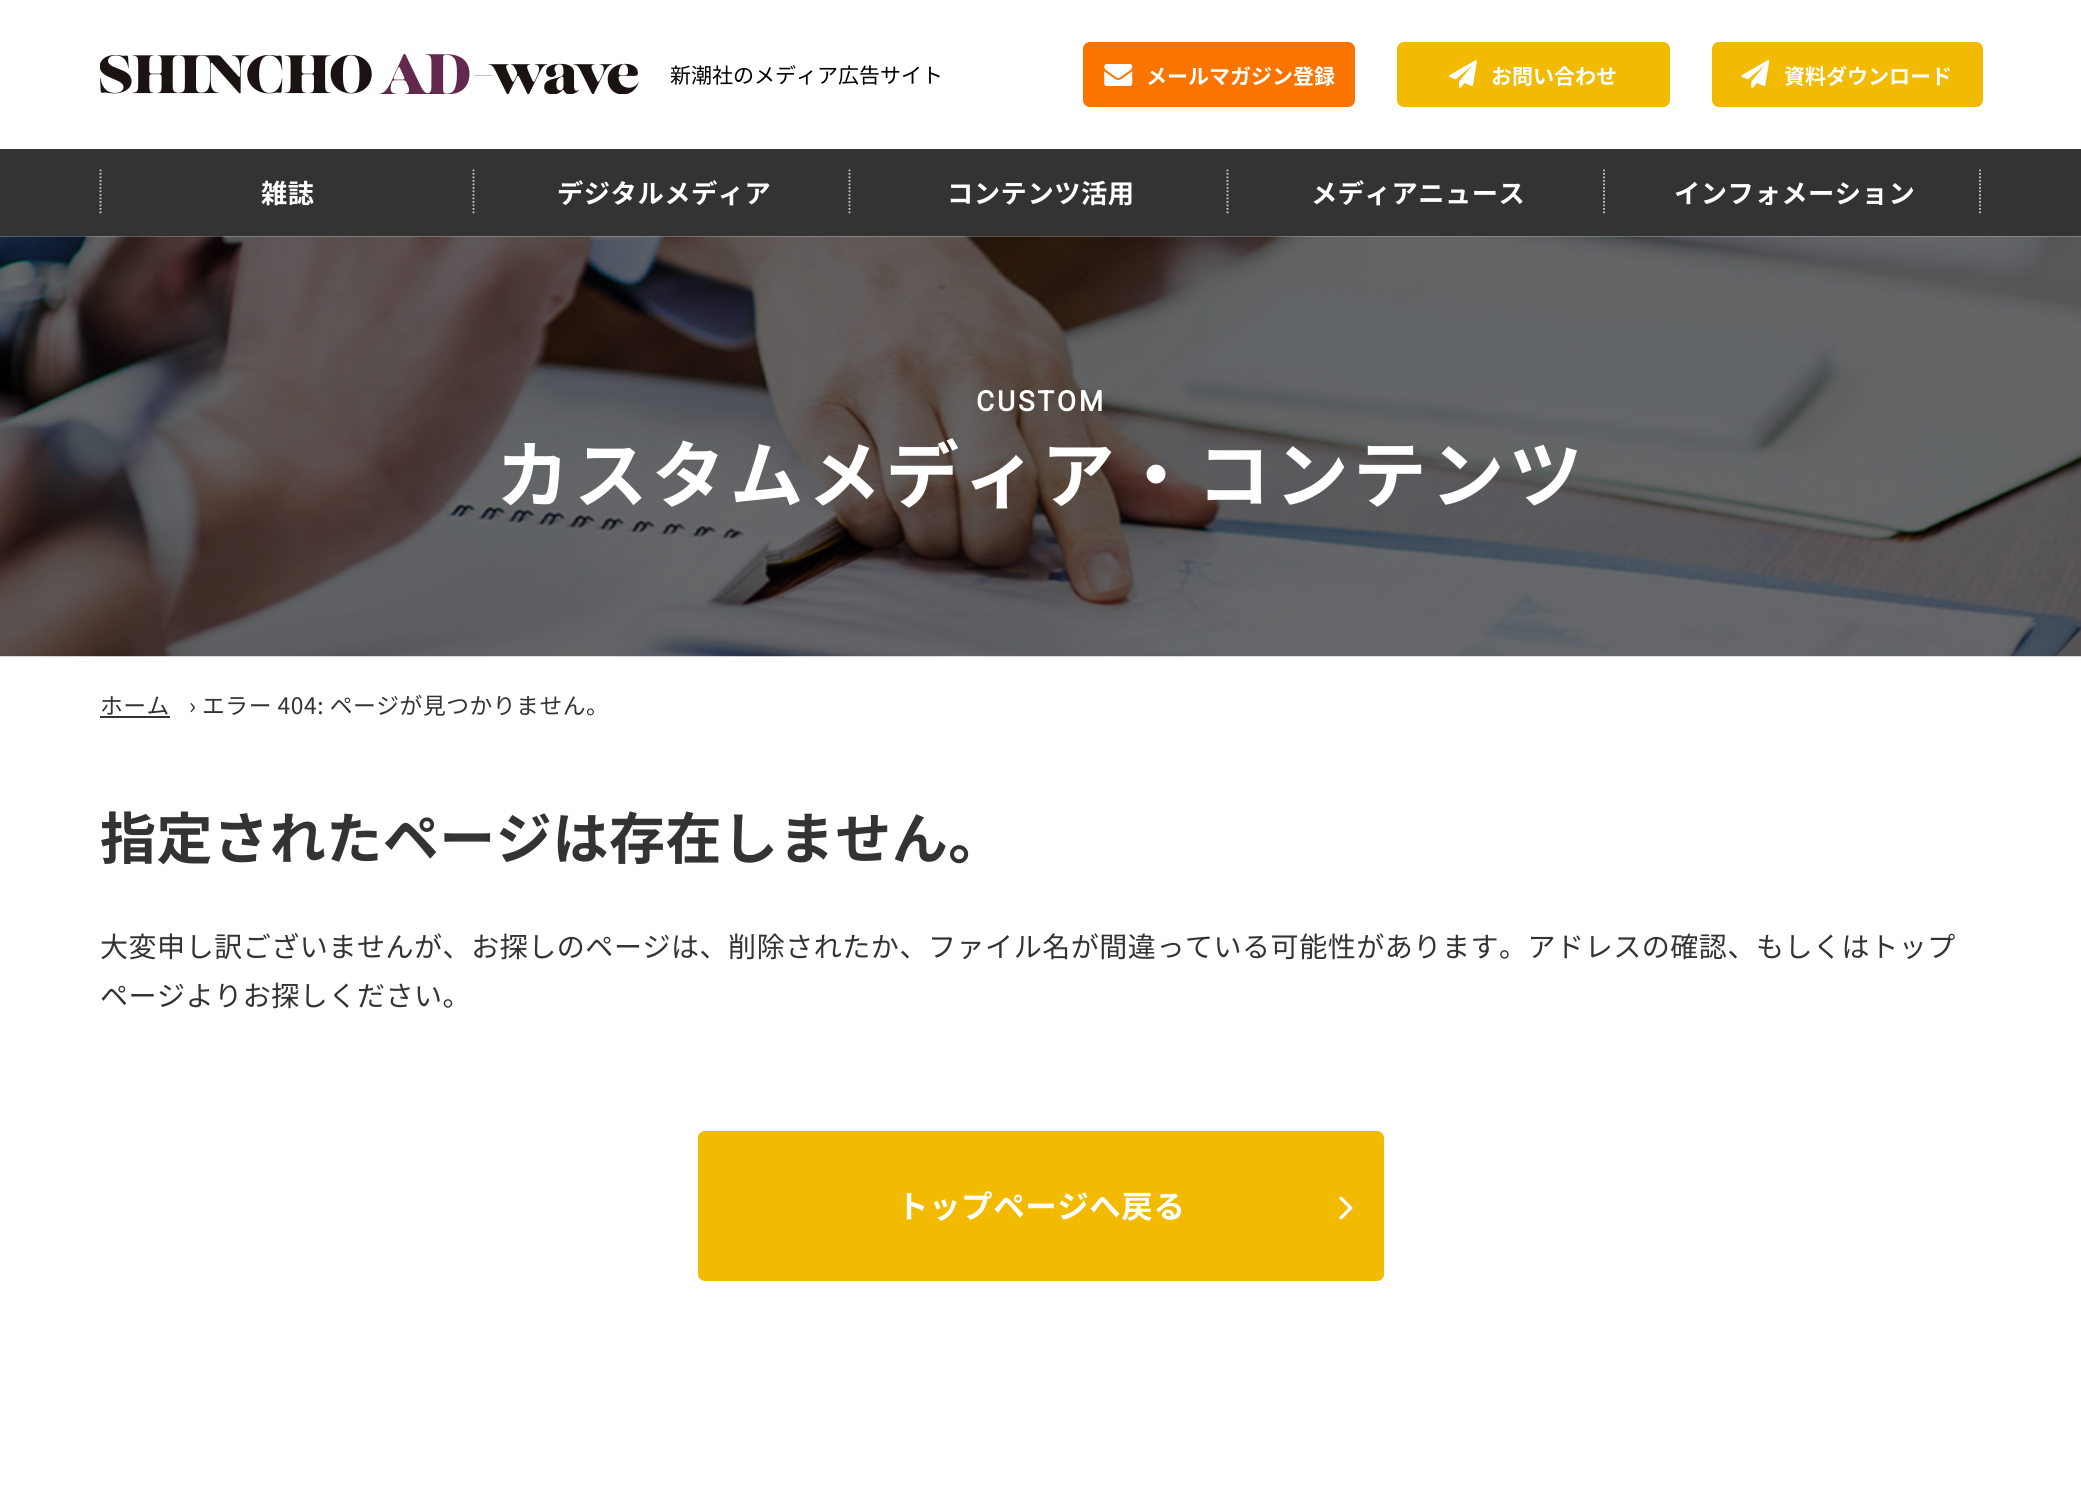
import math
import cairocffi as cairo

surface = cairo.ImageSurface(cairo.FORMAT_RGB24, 2081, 1500)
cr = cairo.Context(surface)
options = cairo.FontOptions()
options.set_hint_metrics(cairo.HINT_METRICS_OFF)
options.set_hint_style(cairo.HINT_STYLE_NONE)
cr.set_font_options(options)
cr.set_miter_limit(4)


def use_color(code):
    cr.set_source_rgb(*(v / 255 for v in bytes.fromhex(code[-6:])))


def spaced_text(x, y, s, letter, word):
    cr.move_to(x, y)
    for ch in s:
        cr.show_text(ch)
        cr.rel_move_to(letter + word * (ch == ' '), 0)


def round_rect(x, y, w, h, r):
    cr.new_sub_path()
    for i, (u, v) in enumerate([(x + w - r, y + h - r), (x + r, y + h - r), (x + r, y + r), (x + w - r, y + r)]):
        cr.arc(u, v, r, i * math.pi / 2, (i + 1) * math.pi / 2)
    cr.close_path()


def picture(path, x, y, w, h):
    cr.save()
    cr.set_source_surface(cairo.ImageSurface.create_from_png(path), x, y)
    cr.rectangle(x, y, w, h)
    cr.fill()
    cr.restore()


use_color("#ffffff")
cr.paint()
picture("img1.png", 100, 54, 539, 40)
cr.select_font_face("Noto Sans JP")
cr.set_font_size(21)
use_color("#000000")
cr.move_to(670, 83)
cr.show_text("新潮社のメディア広告サイト")
use_color("#fc7400")
round_rect(1084, 43, 270, 63, 6)
cr.fill_preserve()
cr.stroke()
picture("img2.png", 1104, 64, 29, 22)
cr.select_font_face("Noto Sans JP", cairo.FONT_SLANT_NORMAL, cairo.FONT_WEIGHT_BOLD)
use_color("#ffffff")
cr.move_to(1146, 84)
cr.show_text("メールマガジン登録")
use_color("#f2ba00")
round_rect(1398, 43, 271, 63, 6)
cr.fill_preserve()
cr.stroke()
picture("img3.png", 1449, 60, 28, 28)
use_color("#ffffff")
cr.move_to(1491, 84)
cr.show_text("お問い合わせ")
use_color("#f2ba00")
round_rect(1713, 43, 269, 63, 6)
cr.fill_preserve()
cr.stroke()
picture("img4.png", 1741, 60, 29, 28)
use_color("#ffffff")
cr.move_to(1784, 84)
cr.show_text("資料ダウンロード")
use_color("#333333")
cr.rectangle(0, 149, 2081, 87)
cr.fill()
cr.new_path()
cr.move_to(100.5, 169.5)
cr.line_to(100.5, 215)
use_color("#cccccc")
cr.set_line_width(1.8)
cr.set_dash([1.75, 1.75])
cr.stroke()
cr.set_font_size(26.25)
use_color("#ffffff")
spaced_text(261, 203, "雑誌", 0.55, 0)
cr.new_path()
cr.move_to(473.5, 169.5)
cr.line_to(473.5, 215)
use_color("#cccccc")
cr.stroke()
use_color("#ffffff")
spaced_text(557, 203, "デジタルメディア", 0.55, 0)
cr.new_path()
cr.move_to(849.5, 169.5)
cr.line_to(849.5, 215)
use_color("#cccccc")
cr.stroke()
use_color("#ffffff")
spaced_text(947, 203, "コンテンツ活用", 0.55, 0)
cr.new_path()
cr.move_to(1227.5, 169.5)
cr.line_to(1227.5, 215)
use_color("#cccccc")
cr.stroke()
use_color("#ffffff")
spaced_text(1311, 203, "メディアニュース", 0.55, 0)
cr.new_path()
cr.move_to(1604, 169.5)
cr.line_to(1604, 215)
use_color("#cccccc")
cr.stroke()
use_color("#ffffff")
spaced_text(1674, 203, "インフォメーション", 0.55, 0)
cr.new_path()
cr.move_to(1980, 169.5)
cr.line_to(1980, 215)
use_color("#cccccc")
cr.stroke()
picture("img5.png", 0, 236, 2081, 421)
cr.select_font_face("Roboto", cairo.FONT_SLANT_NORMAL, cairo.FONT_WEIGHT_BOLD)
cr.set_font_size(28)
use_color("#ffffff")
spaced_text(976, 411, "CUSTOM", 2.75, 0)
cr.select_font_face("Noto Sans JP", cairo.FONT_SLANT_NORMAL, cairo.FONT_WEIGHT_BOLD)
cr.set_font_size(73.5)
spaced_text(496, 502, "カスタムメディア・コンテンツ", 4.4, 0)
cr.select_font_face("Noto Sans JP")
cr.set_font_size(22.75)
use_color("#333333")
spaced_text(100, 714, "ホーム", 0.55, 0)
cr.rectangle(100, 716, 70, 2)
cr.fill()
spaced_text(189, 714, "› エラー 404: ページが見つかりません。", 0.55, 0)
cr.select_font_face("Noto Sans JP", cairo.FONT_SLANT_NORMAL, cairo.FONT_WEIGHT_BOLD)
cr.set_font_size(56)
spaced_text(100, 859, "指定されたページは存在しません。", 0.55, 0)
cr.select_font_face("Noto Sans JP")
cr.set_font_size(28)
spaced_text(100, 957, "大変申し訳ございませんが、お探しのページは、削除されたか、ファイル名が間違っている可能性があります。アドレスの確認、もしくはトップ", 0.55, 0)
spaced_text(100, 1006, "ページよりお探しください。", 0.55, 0)
use_color("#f2ba00")
round_rect(699, 1132, 684, 148, 6)
cr.fill_preserve()
cr.set_line_width(2)
cr.set_dash([])
cr.stroke()
cr.select_font_face("Noto Sans JP", cairo.FONT_SLANT_NORMAL, cairo.FONT_WEIGHT_BOLD)
cr.set_font_size(31.5)
use_color("#ffffff")
spaced_text(897, 1218, "トップページへ戻る", 0.55, 0)
picture("img6.png", 1339, 1196, 14, 24)
surface.write_to_png("result.png")
